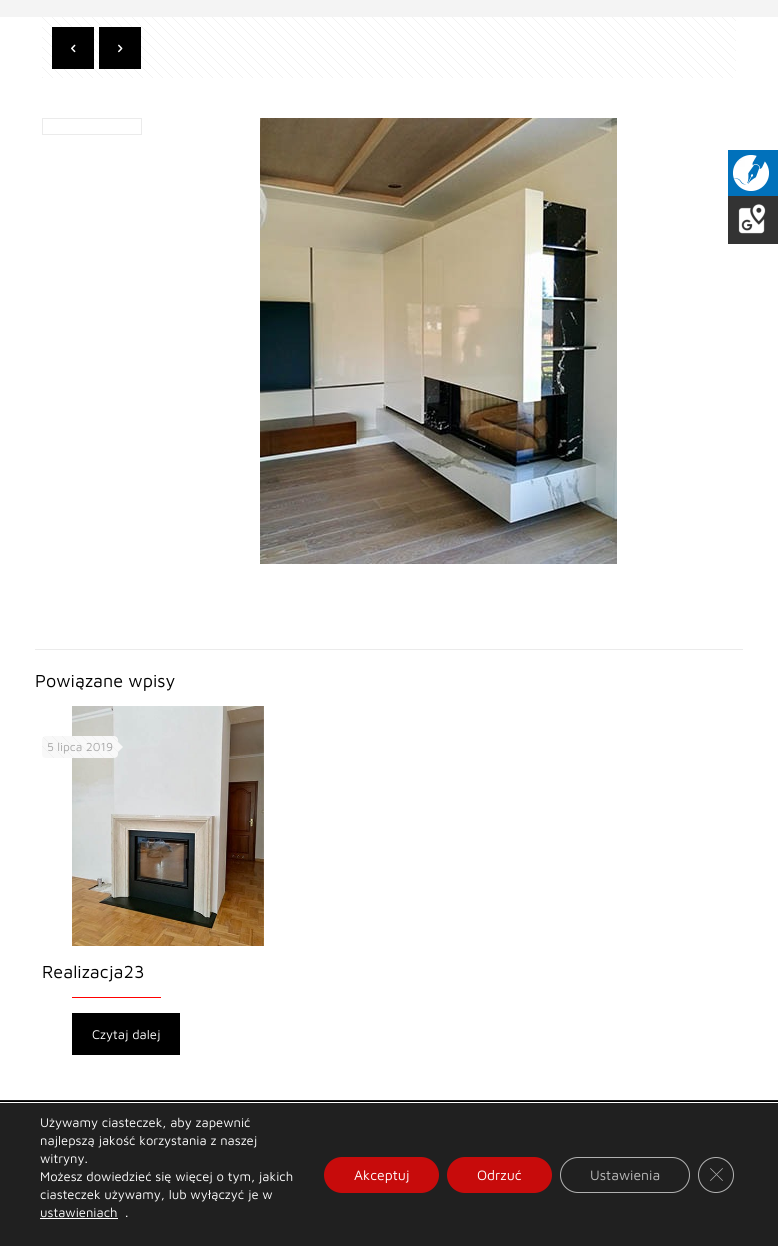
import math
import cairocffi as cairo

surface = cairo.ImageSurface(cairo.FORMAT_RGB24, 778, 1246)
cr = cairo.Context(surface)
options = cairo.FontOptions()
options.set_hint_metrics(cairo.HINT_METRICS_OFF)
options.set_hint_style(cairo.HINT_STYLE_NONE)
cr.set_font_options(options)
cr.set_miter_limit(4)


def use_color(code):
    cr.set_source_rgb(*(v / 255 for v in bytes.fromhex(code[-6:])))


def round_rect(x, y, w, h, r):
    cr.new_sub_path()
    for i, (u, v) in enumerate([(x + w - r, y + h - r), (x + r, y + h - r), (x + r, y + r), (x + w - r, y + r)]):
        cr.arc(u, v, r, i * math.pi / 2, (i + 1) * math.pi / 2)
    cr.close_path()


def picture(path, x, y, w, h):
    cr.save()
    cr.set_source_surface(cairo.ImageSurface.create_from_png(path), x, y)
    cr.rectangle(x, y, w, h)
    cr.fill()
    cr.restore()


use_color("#ffffff")
cr.paint()
use_color("#0171bb")
cr.rectangle(728, 150, 50, 46)
cr.fill()
picture("img1.png", 733, 155, 36, 36)
use_color("#333333")
cr.rectangle(728, 196, 50, 48)
cr.fill()
picture("img2.png", 738, 204, 28, 30)
use_color("#f4f4f4")
cr.rectangle(0, 0, 778, 17)
cr.fill()
picture("img3.png", 42, 17, 694, 61)
use_color("#000000")
cr.rectangle(52, 27, 42, 42)
cr.fill()
picture("img4.png", 71, 44, 5, 9)
cr.rectangle(99, 27, 42, 42)
cr.fill()
picture("img5.png", 118, 44, 5, 9)
cr.rectangle(42.5, 118.5, 99, 16)
use_color("#ebebeb")
cr.set_line_width(1)
cr.stroke()
picture("img6.png", 260, 118, 357, 446)
cr.rectangle(35, 649, 708, 1)
cr.fill()
cr.select_font_face("Maven Pro")
cr.set_font_size(18)
use_color("#000000")
cr.move_to(35, 687)
cr.show_text("Powiązane wpisy")
picture("img7.png", 72, 706, 192, 240)
use_color("#f8f8f8")
round_rect(42, 736, 76, 22, 4)
cr.fill()
picture("img8.png", 42, 736, 76, 22)
cr.set_font_size(12)
use_color("#a8a8a8")
cr.move_to(47, 751)
cr.show_text("5 lipca 2019")
use_color("#f8f8f8")
cr.new_path()
cr.move_to(118, 752)
cr.line_to(118, 742)
cr.line_to(123, 747)
cr.close_path()
cr.fill()
cr.set_font_size(18)
use_color("#000000")
cr.move_to(42, 978)
cr.show_text("Realizacja23")
use_color("#ff0000")
cr.rectangle(72, 997, 89, 1)
cr.fill()
use_color("#000000")
cr.rectangle(72, 1013, 108, 42)
cr.fill()
cr.set_font_size(13)
use_color("#ffffff")
cr.move_to(92, 1039)
cr.show_text("Czytaj dalej")
use_color("#000000")
cr.rectangle(0, 1101, 778, 1)
cr.fill()
use_color("#1a1a1a")
cr.rectangle(0, 1100, 778, 1)
cr.fill()
use_color("#202020")
cr.rectangle(0, 1103, 778, 143)
cr.fill()
use_color("#ffffff")
cr.move_to(40, 1127)
cr.show_text("Używamy ciasteczek, aby zapewnić")
cr.move_to(40, 1145)
cr.show_text("najlepszą jakość korzystania z naszej")
cr.move_to(40, 1163)
cr.show_text("witryny.")
cr.move_to(40, 1181)
cr.show_text("Możesz dowiedzieć się więcej o tym, jakich")
cr.move_to(40, 1199)
cr.show_text("ciasteczek używamy, lub wyłączyć je w")
cr.move_to(40, 1217)
cr.show_text("ustawieniach")
cr.rectangle(40, 1218, 78, 1)
cr.fill()
cr.move_to(125, 1217)
cr.show_text(".")
use_color("#c70b0b")
round_rect(324, 1157, 115, 36, 18)
cr.fill()
cr.set_font_size(14)
use_color("#ffffff")
cr.move_to(354, 1180)
cr.show_text("Akceptuj")
use_color("#c70b0b")
round_rect(447, 1157, 105, 36, 18)
cr.fill()
use_color("#ffffff")
cr.move_to(477, 1180)
cr.show_text("Odrzuć")
round_rect(560.5, 1157.5, 129, 35, 17.5)
use_color("#bcbcbc")
cr.stroke()
cr.set_source_rgba(0.125, 0.125, 0.125, 0.07)
round_rect(560, 1157, 130, 36, 18)
cr.fill()
use_color("#bcbcbc")
cr.move_to(590, 1180)
cr.show_text("Ustawienia")
cr.new_path()
cr.arc(716, 1175, 17.5, 0, 2 * math.pi)
cr.stroke()
cr.new_path()
cr.move_to(722.5, 1168)
cr.line_to(723, 1168.5)
cr.line_to(710.5, 1181)
cr.line_to(710, 1180.5)
cr.close_path()
cr.fill()
cr.new_path()
cr.move_to(710, 1168.5)
cr.line_to(710.5, 1168)
cr.line_to(723, 1180.5)
cr.line_to(722.5, 1181)
cr.close_path()
cr.fill()
cr.set_source_rgba(0.125, 0.125, 0.125, 0.07)
cr.arc(716, 1175, 18, 0, 2 * math.pi)
cr.fill()
surface.write_to_png("result.png")
